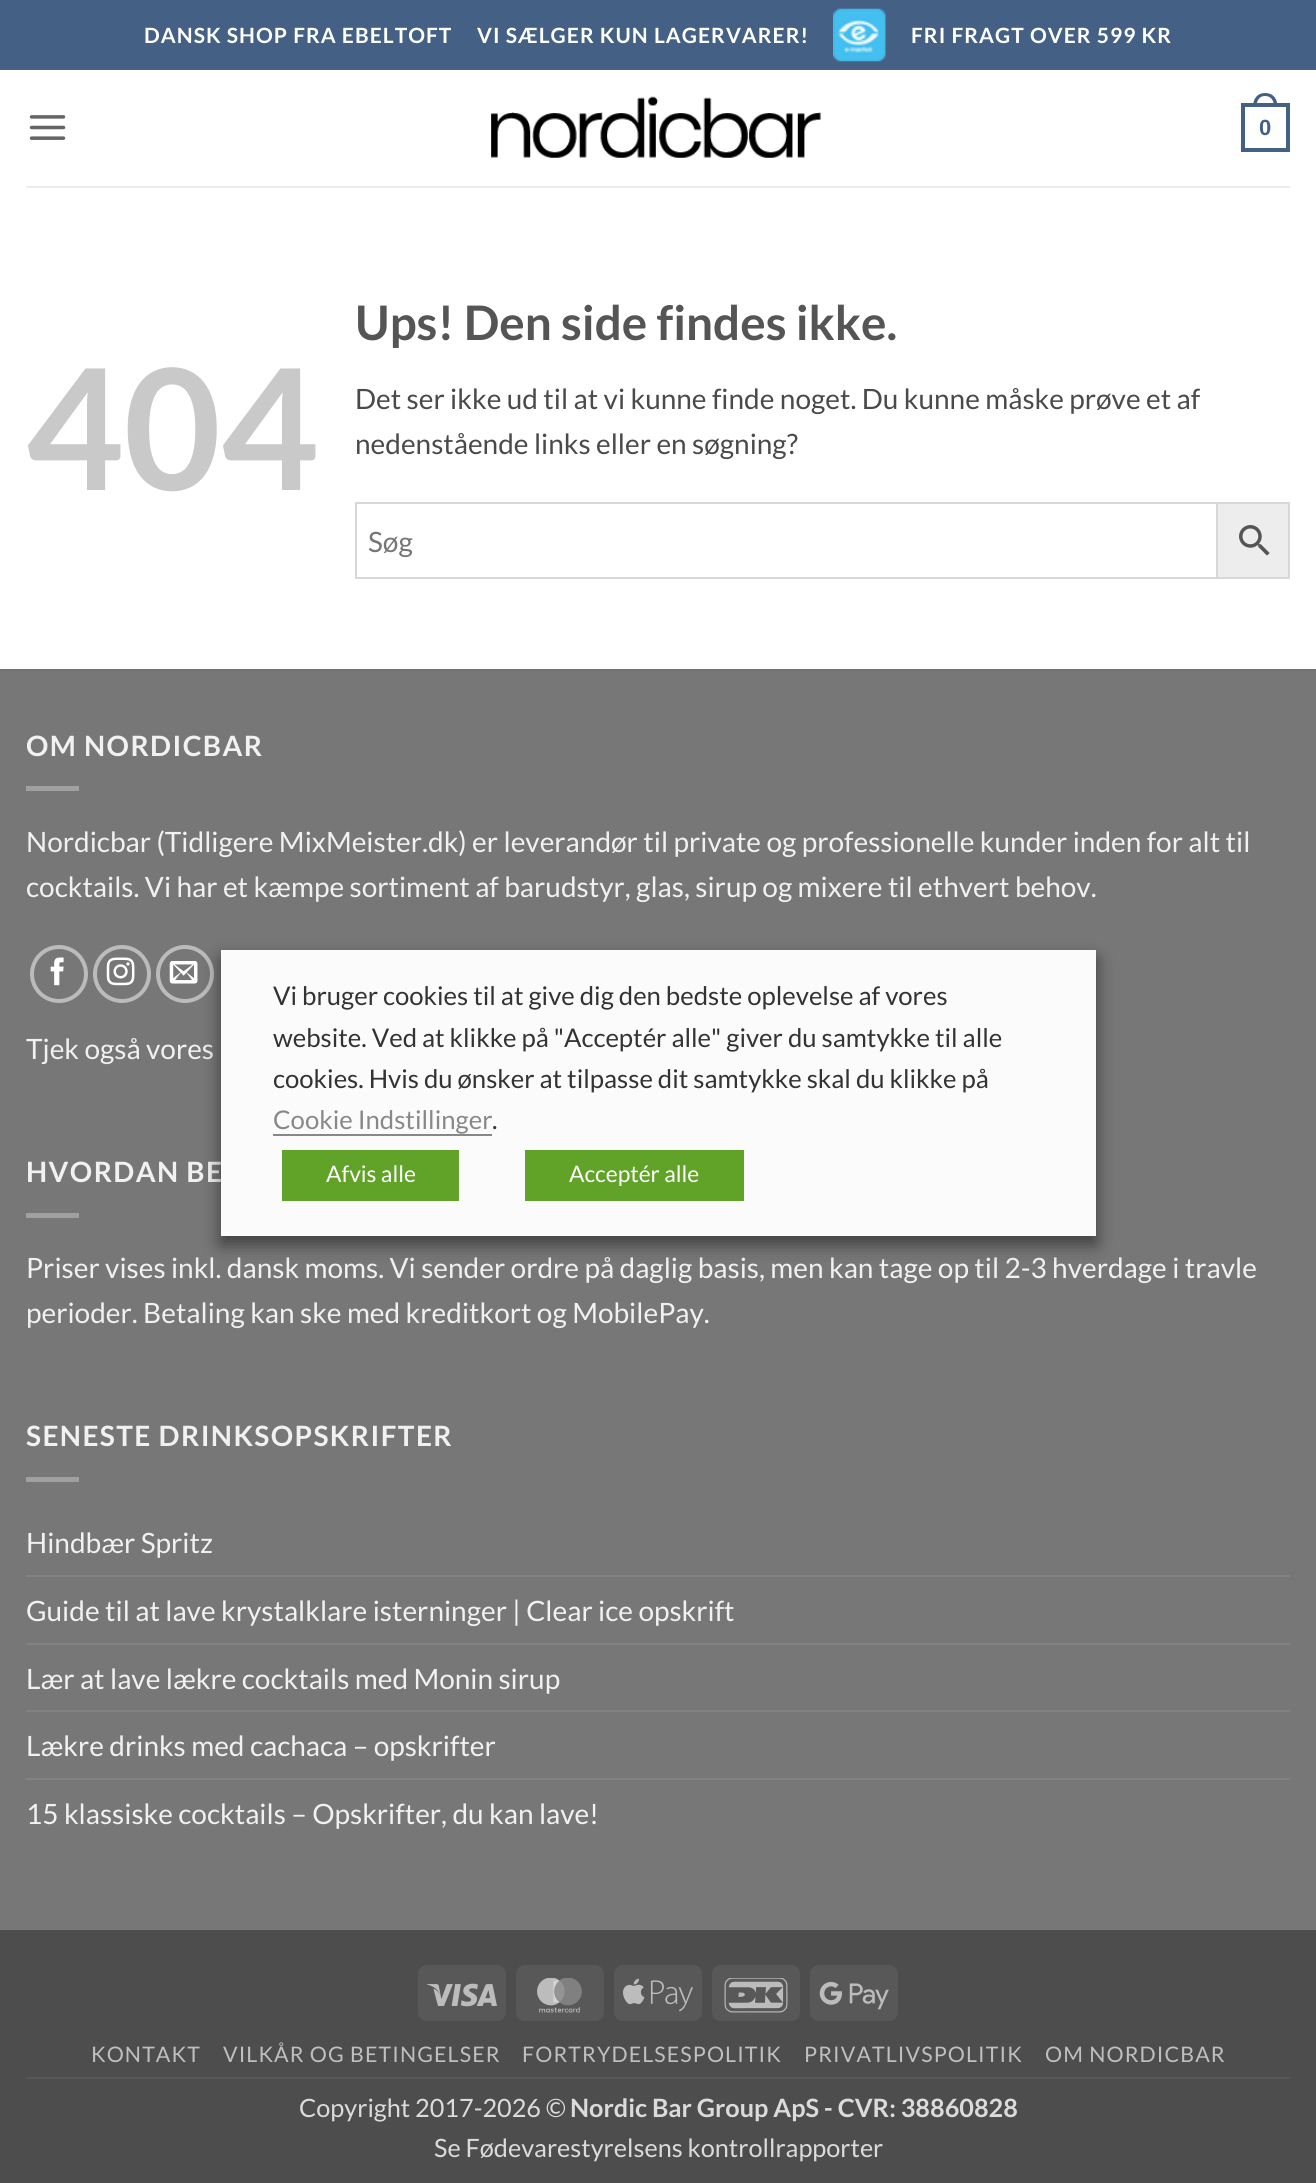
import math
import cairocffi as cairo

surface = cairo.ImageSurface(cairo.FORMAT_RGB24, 1316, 2183)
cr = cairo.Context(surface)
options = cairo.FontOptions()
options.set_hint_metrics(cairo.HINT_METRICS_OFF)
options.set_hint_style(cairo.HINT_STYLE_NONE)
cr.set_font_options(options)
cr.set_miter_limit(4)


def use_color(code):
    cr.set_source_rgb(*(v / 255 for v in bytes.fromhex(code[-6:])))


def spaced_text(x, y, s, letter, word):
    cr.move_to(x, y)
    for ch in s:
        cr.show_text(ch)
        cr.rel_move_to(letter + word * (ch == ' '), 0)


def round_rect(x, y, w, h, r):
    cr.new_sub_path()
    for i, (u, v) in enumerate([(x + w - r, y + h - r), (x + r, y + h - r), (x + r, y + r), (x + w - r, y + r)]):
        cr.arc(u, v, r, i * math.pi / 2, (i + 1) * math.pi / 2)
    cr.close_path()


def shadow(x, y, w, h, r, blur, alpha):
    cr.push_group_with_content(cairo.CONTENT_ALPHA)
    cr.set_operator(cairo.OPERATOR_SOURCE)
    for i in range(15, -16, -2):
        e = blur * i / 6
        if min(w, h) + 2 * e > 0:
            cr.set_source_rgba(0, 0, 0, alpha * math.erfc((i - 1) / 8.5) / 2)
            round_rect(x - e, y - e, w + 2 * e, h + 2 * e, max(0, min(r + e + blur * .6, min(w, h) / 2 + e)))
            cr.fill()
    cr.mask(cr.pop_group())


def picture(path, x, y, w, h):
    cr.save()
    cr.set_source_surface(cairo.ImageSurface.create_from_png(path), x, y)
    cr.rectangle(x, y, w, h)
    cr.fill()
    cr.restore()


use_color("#ffffff")
cr.paint()
use_color("#446084")
cr.rectangle(0, 0, 1316, 70)
cr.fill()
cr.select_font_face("Lato", cairo.FONT_SLANT_NORMAL, cairo.FONT_WEIGHT_BOLD)
cr.set_font_size(21)
use_color("#ffffff")
spaced_text(144, 43, "DANSK SHOP FRA EBELTOFT", 1.05, 0)
spaced_text(477, 43, "VI SÆLGER KUN LAGERVARER!", 1.05, 0)
picture("img1.png", 833, 8, 53, 54)
spaced_text(911, 43, "FRI FRAGT OVER 599 KR", 1.05, 0)
picture("img2.png", 29, 115, 37, 25)
picture("img3.png", 491, 96, 330, 62)
cr.rectangle(1243, 105, 45, 45)
use_color("#446084")
cr.set_line_width(4)
cr.stroke()
cr.set_fill_rule(cairo.FILL_RULE_EVEN_ODD)
cr.new_path()
cr.move_to(1265, 93)
cr.curve_to(1273.5, 93, 1277.5, 99, 1277.5, 107)
cr.line_to(1253, 107)
cr.curve_to(1253, 99, 1257, 93, 1265, 93)
cr.close_path()
cr.move_to(1265, 96)
cr.curve_to(1271.5, 96, 1274, 101, 1274, 107)
cr.line_to(1256.5, 107)
cr.curve_to(1256.5, 101, 1259, 96, 1265, 96)
cr.close_path()
cr.fill()
cr.select_font_face("Liberation Sans", cairo.FONT_SLANT_NORMAL, cairo.FONT_WEIGHT_BOLD)
cr.set_font_size(22)
cr.move_to(1259, 135)
cr.show_text("0")
use_color("#ededed")
cr.rectangle(26, 186, 1264, 2)
cr.fill()
cr.select_font_face("Lato", cairo.FONT_SLANT_NORMAL, cairo.FONT_WEIGHT_BOLD)
cr.set_font_size(168)
use_color("#c9c9c9")
cr.move_to(26, 490)
cr.show_text("404")
cr.set_font_size(47.6)
use_color("#555555")
cr.move_to(355, 340)
cr.show_text("Ups! Den side findes ikke.")
cr.select_font_face("Lato")
cr.set_font_size(28)
use_color("#4a4a4a")
cr.move_to(355, 409)
cr.show_text("Det ser ikke ud til at vi kunne finde noget. Du kunne måske prøve et af")
cr.move_to(355, 454)
cr.show_text("nedenstående links eller en søgning?")
use_color("#ededed")
cr.rectangle(1217, 503, 72, 75)
cr.fill_preserve()
use_color("#d8d8d8")
cr.set_line_width(2)
cr.stroke()
cr.rectangle(356, 503, 861, 75)
cr.stroke()
use_color("#757575")
cr.move_to(368, 552)
cr.show_text("Søg")
picture("img4.png", 1239, 525, 31, 31)
use_color("#777777")
cr.rectangle(0, 671, 1316, 1259)
cr.fill()
use_color("#717171")
cr.rectangle(0, 669, 1316, 2)
cr.fill()
cr.select_font_face("Lato", cairo.FONT_SLANT_NORMAL, cairo.FONT_WEIGHT_BOLD)
use_color("#f1f1f1")
spaced_text(26, 756, "OM NORDICBAR", 1.4, 0)
use_color("#a0a0a0")
cr.rectangle(26, 786, 53, 5)
cr.fill()
cr.select_font_face("Lato")
use_color("#f1f1f1")
cr.move_to(26, 852)
cr.show_text("Nordicbar (Tidligere MixMeister.dk) er leverandør til private og professionelle kunder inden for alt til")
cr.move_to(26, 897)
cr.show_text("cocktails. Vi har et kæmpe sortiment af barudstyr, glas, sirup og mixere til ethvert behov.")
cr.new_path()
cr.arc(59, 974, 27, 0, 2 * math.pi)
use_color("#bbbbbb")
cr.set_line_width(4)
cr.stroke()
picture("img5.png", 50, 957, 14, 29)
cr.arc(122, 974, 27, 0, 2 * math.pi)
cr.stroke()
picture("img6.png", 106, 957, 29, 29)
cr.arc(185, 974, 27, 0, 2 * math.pi)
cr.stroke()
picture("img7.png", 169, 961, 29, 23)
use_color("#f1f1f1")
cr.move_to(26, 1059)
cr.show_text("Tjek også vores")
cr.select_font_face("Lato", cairo.FONT_SLANT_NORMAL, cairo.FONT_WEIGHT_BOLD)
spaced_text(26, 1182, "HVORDAN BE", 1.4, 0)
use_color("#a0a0a0")
cr.rectangle(26, 1213, 53, 5)
cr.fill()
cr.select_font_face("Lato")
use_color("#f1f1f1")
cr.move_to(26, 1278)
cr.show_text("Priser vises inkl. dansk moms. Vi sender ordre på daglig basis, men kan tage op til 2-3 hverdage i travle")
cr.move_to(26, 1323)
cr.show_text("perioder. Betaling kan ske med kreditkort og MobilePay.")
cr.select_font_face("Lato", cairo.FONT_SLANT_NORMAL, cairo.FONT_WEIGHT_BOLD)
spaced_text(26, 1446, "SENESTE DRINKSOPSKRIFTER", 1.4, 0)
use_color("#a0a0a0")
cr.rectangle(26, 1477, 53, 5)
cr.fill()
cr.select_font_face("Lato")
use_color("#f1f1f1")
cr.move_to(26, 1553)
cr.show_text("Hindbær Spritz")
use_color("#828282")
cr.rectangle(26, 1575, 1264, 2)
cr.fill()
use_color("#f1f1f1")
cr.move_to(26, 1621)
cr.show_text("Guide til at lave krystalklare isterninger | Clear ice opskrift")
use_color("#828282")
cr.rectangle(26, 1643, 1264, 2)
cr.fill()
use_color("#f1f1f1")
cr.move_to(26, 1689)
cr.show_text("Lær at lave lækre cocktails med Monin sirup")
use_color("#828282")
cr.rectangle(26, 1710, 1264, 2)
cr.fill()
use_color("#f1f1f1")
cr.move_to(26, 1756)
cr.show_text("Lækre drinks med cachaca – opskrifter")
use_color("#828282")
cr.rectangle(26, 1778, 1264, 2)
cr.fill()
use_color("#f1f1f1")
cr.move_to(26, 1824)
cr.show_text("15 klassiske cocktails – Opskrifter, du kan lave!")
use_color("#4d4d4d")
cr.rectangle(0, 1930, 1316, 253)
cr.fill()
use_color("#585858")
round_rect(418, 1965, 88, 56, 9)
cr.fill()
picture("img8.png", 427, 1983, 70, 24)
round_rect(516, 1965, 88, 56, 9)
cr.fill()
picture("img9.png", 537, 1978, 45, 35)
round_rect(614, 1965, 88, 56, 9)
cr.fill()
picture("img10.png", 623, 1978, 70, 34)
round_rect(712, 1965, 88, 56, 9)
cr.fill()
picture("img11.png", 724, 1978, 64, 35)
round_rect(810, 1965, 88, 56, 9)
cr.fill()
picture("img12.png", 819, 1981, 70, 29)
cr.rectangle(26, 2077, 1264, 2)
cr.fill()
cr.set_font_size(21.4)
use_color("#bfbfbf")
spaced_text(91, 2062, "KONTAKT", 1.1, 0)
spaced_text(223, 2062, "VILKÅR OG BETINGELSER", 1.1, 0)
spaced_text(522, 2062, "FORTRYDELSESPOLITIK", 1.1, 0)
spaced_text(804, 2062, "PRIVATLIVSPOLITIK", 1.1, 0)
spaced_text(1045, 2062, "OM NORDICBAR", 1.1, 0)
cr.set_font_size(25.25)
use_color("#dbdbdb")
cr.move_to(299, 2117)
cr.show_text("Copyright 2017-2026 ©")
cr.select_font_face("Lato", cairo.FONT_SLANT_NORMAL, cairo.FONT_WEIGHT_BOLD)
cr.move_to(570, 2117)
cr.show_text("Nordic Bar Group ApS - CVR: 38860828")
cr.select_font_face("Lato")
cr.move_to(434, 2157)
cr.show_text("Se Fødevarestyrelsens kontrollrapporter")
cr.save()
cr.new_path()
cr.move_to(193, 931)
cr.line_to(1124, 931)
cr.line_to(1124, 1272)
cr.line_to(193, 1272)
cr.close_path()
cr.move_to(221, 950)
cr.line_to(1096, 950)
cr.line_to(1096, 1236)
cr.line_to(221, 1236)
cr.close_path()
cr.clip()
use_color("#000000")
shadow(221, 959, 875, 285, 0, 9, 0.5)
cr.restore()
cr.set_source_rgba(1, 1, 1, 0.97)
cr.rectangle(221, 950, 875, 286)
cr.fill()
cr.set_font_size(25.7)
use_color("#333333")
cr.move_to(273, 1005)
cr.show_text("Vi bruger cookies til at give dig den bedste oplevelse af vores")
cr.move_to(273, 1047)
cr.show_text("website. Ved at klikke på \"Acceptér alle\" giver du samtykke til alle")
cr.move_to(273, 1088)
cr.show_text("cookies. Hvis du ønsker at tilpasse dit samtykke skal du klikke på")
use_color("#898888")
cr.move_to(273, 1129)
cr.show_text("Cookie Indstillinger")
cr.rectangle(273, 1134, 219, 2)
cr.fill()
use_color("#333333")
cr.move_to(492, 1129)
cr.show_text(".")
use_color("#61a229")
cr.rectangle(282, 1150, 177, 51)
cr.fill()
cr.set_font_size(22.75)
use_color("#ffffff")
cr.move_to(326, 1182)
cr.show_text("Afvis alle")
use_color("#61a229")
cr.rectangle(525, 1150, 219, 51)
cr.fill()
use_color("#ffffff")
cr.move_to(569, 1182)
cr.show_text("Acceptér alle")
surface.write_to_png("result.png")
